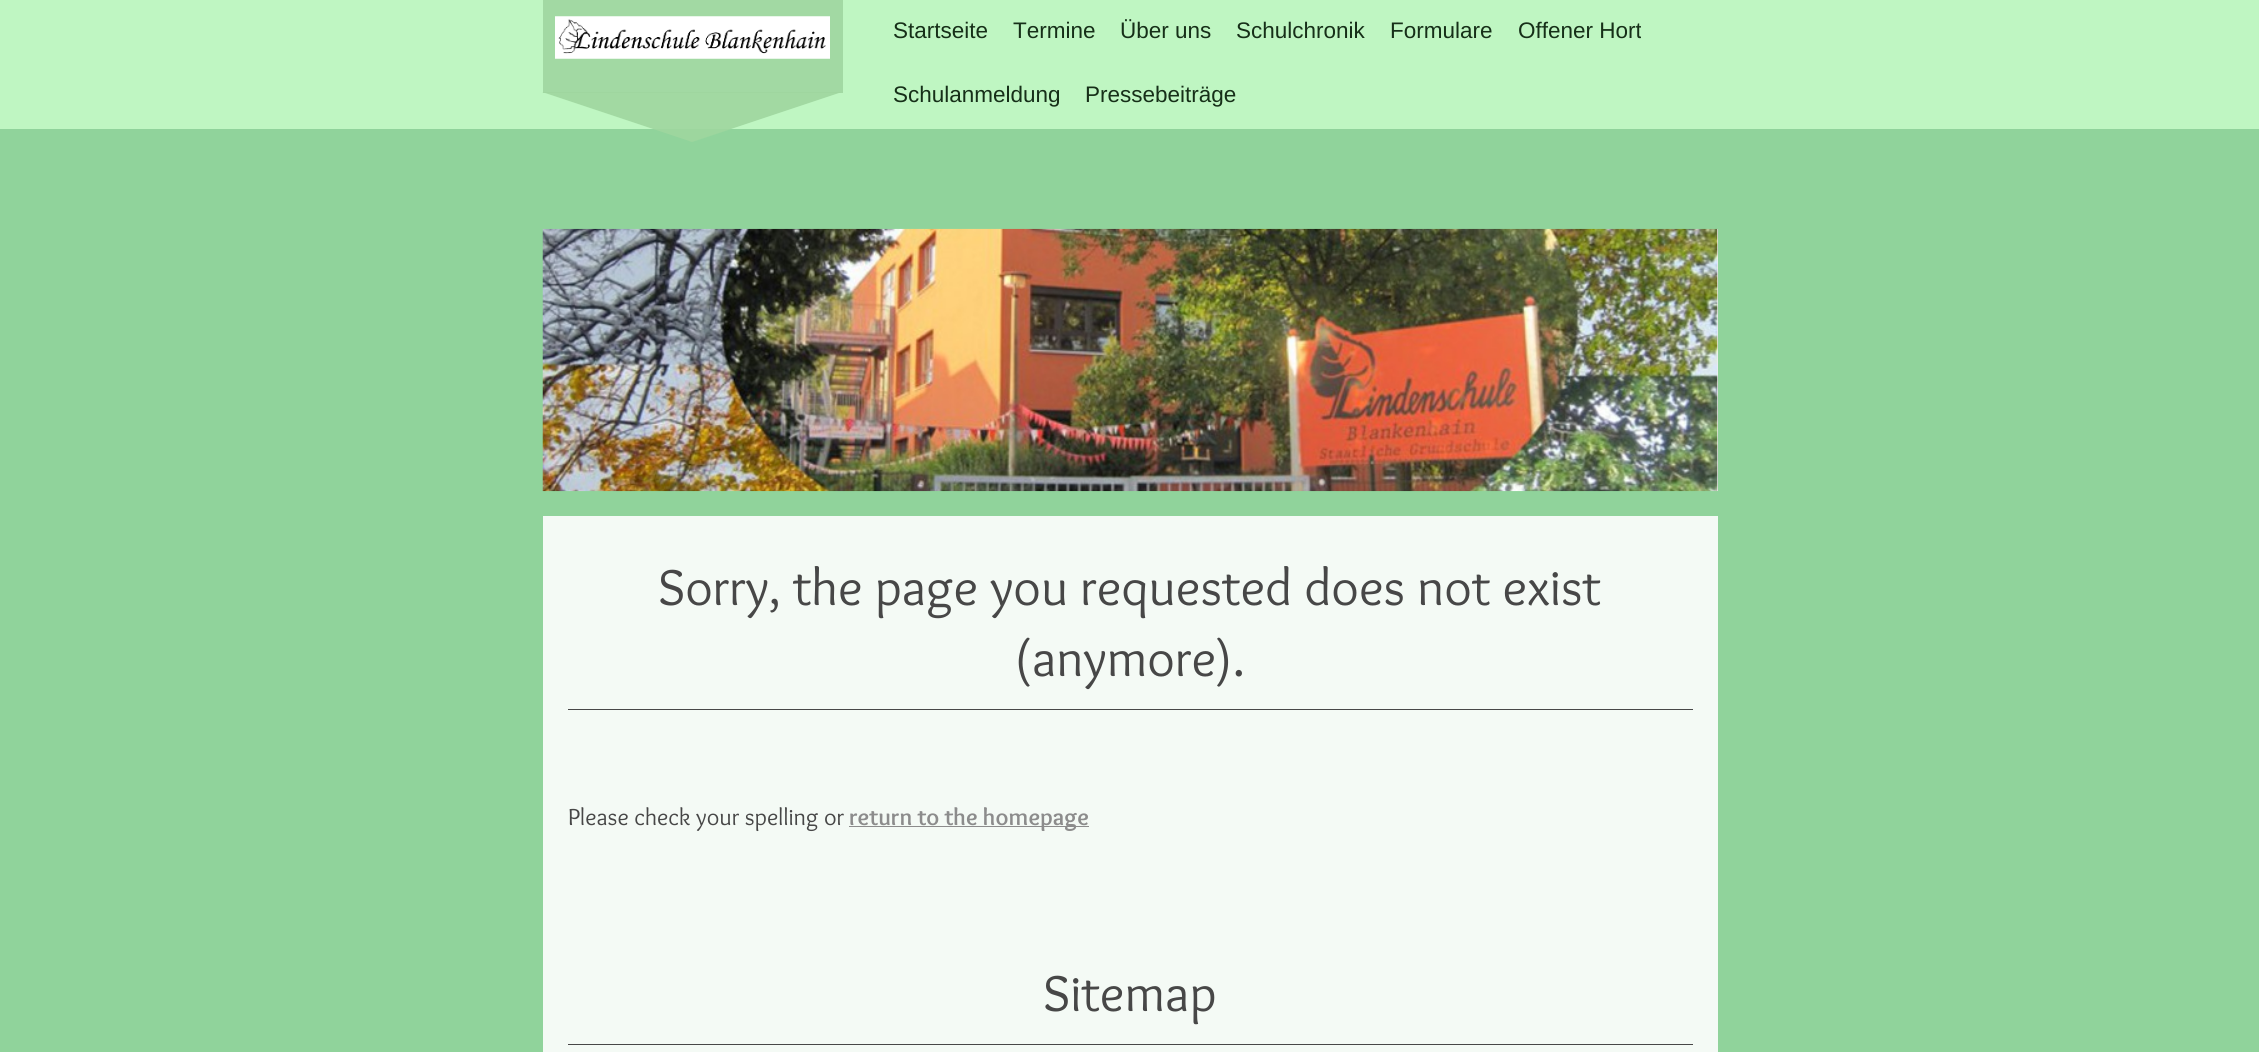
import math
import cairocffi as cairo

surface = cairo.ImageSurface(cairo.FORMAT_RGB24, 2259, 1052)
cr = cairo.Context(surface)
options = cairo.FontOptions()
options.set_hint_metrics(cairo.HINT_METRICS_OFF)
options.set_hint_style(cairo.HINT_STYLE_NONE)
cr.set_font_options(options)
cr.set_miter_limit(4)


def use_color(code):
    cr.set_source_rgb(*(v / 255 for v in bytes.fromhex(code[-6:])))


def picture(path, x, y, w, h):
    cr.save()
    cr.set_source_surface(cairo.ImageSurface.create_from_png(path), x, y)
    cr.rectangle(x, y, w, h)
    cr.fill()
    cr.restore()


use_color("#90d39b")
cr.paint()
use_color("#bff6c2")
cr.rectangle(0, 0, 2259, 129)
cr.fill()
use_color("#a2d9a3")
cr.rectangle(543, 0, 300, 93)
cr.fill()
picture("img1.png", 555, 16, 275, 43)
cr.set_source_rgba(0.624, 0.839, 0.624, 0.9)
cr.new_path()
cr.move_to(542, 92)
cr.line_to(842, 92)
cr.line_to(692, 142)
cr.close_path()
cr.fill()
cr.select_font_face("Liberation Sans")
cr.set_font_size(22.5)
use_color("#162f18")
cr.move_to(893, 38)
cr.show_text("Startseite")
cr.move_to(1013, 38)
cr.show_text("Termine")
cr.move_to(1120, 38)
cr.show_text("Über uns")
cr.move_to(1236, 38)
cr.show_text("Schulchronik")
cr.move_to(1390, 38)
cr.show_text("Formulare")
cr.save()
cr.rectangle(1518, 0, 123, 60)
cr.clip()
cr.move_to(1518, 38)
cr.show_text("Offener Hort")
cr.restore()
cr.move_to(893, 102)
cr.show_text("Schulanmeldung")
cr.move_to(1085, 102)
cr.show_text("Pressebeiträge")
use_color("#eeeeee")
cr.rectangle(1717, 229, 1, 262)
cr.fill()
picture("img2.png", 542, 228, 1176, 264)
use_color("#f4faf5")
cr.rectangle(543, 516, 1175, 536)
cr.fill()
use_color("#474747")
cr.rectangle(568, 709, 1125, 1)
cr.fill()
cr.select_font_face("Overlock")
cr.set_font_size(52.5)
cr.move_to(658, 605)
cr.show_text("Sorry, the page you requested does not exist")
cr.move_to(1014, 676)
cr.show_text("(anymore).")
cr.set_font_size(24)
cr.move_to(568, 825)
cr.show_text("Please check your spelling or")
use_color("#8c8c8c")
cr.rectangle(849, 826, 240, 1)
cr.fill()
cr.select_font_face("Overlock", cairo.FONT_SLANT_NORMAL, cairo.FONT_WEIGHT_BOLD)
cr.move_to(849, 825)
cr.show_text("return to the homepage")
use_color("#474747")
cr.rectangle(568, 1044, 1125, 1)
cr.fill()
cr.select_font_face("Overlock")
cr.set_font_size(52.5)
cr.move_to(1043, 1011)
cr.show_text("Sitemap")
surface.write_to_png("result.png")
